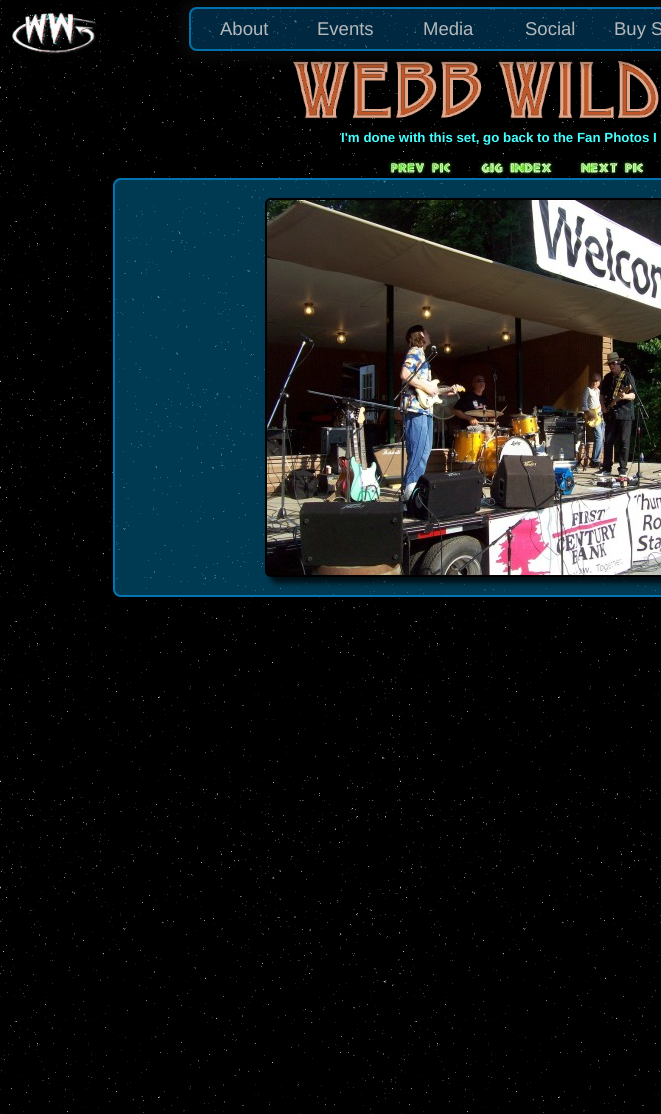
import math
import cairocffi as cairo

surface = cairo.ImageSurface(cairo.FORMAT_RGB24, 661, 1114)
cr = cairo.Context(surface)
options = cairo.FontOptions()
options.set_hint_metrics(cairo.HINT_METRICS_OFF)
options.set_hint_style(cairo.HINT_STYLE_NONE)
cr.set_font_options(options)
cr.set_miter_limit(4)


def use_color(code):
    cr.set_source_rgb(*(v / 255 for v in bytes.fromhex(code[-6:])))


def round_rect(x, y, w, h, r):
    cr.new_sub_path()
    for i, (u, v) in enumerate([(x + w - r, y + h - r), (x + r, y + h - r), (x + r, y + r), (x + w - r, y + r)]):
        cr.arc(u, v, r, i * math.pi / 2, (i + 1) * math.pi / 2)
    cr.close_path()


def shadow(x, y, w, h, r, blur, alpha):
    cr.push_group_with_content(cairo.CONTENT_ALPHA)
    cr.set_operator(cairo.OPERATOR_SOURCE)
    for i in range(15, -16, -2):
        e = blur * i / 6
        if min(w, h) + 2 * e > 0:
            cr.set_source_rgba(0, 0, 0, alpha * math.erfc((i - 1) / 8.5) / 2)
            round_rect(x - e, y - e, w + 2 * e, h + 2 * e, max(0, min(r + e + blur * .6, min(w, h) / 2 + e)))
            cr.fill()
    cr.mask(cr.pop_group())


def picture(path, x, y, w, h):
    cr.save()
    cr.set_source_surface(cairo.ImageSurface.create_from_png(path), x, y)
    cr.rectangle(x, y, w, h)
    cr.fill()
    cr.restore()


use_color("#ffffff")
cr.paint()
picture("img1.png", 0, 0, 661, 1114)
picture("img4.png", 293, 61, 366, 58)
gradient = cairo.LinearGradient(517, 0, 517, 68)
gradient.add_color_stop_rgba(0, 0, 0, 0, 1)
gradient.add_color_stop_rgba(0.15, 0, 0, 0, 0.01)
cr.set_source(gradient)
round_rect(0, 0, 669, 68, 8)
cr.fill()
picture("img2.png", 12, 12, 86, 42)
cr.save()
cr.set_fill_rule(cairo.FILL_RULE_EVEN_ODD)
cr.new_path()
cr.move_to(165, 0)
cr.line_to(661, 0)
cr.line_to(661, 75)
cr.line_to(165, 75)
cr.close_path()
cr.move_to(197, 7)
cr.line_to(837, 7)
cr.curve_to(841.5, 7, 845, 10.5, 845, 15)
cr.line_to(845, 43)
cr.curve_to(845, 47.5, 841.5, 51, 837, 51)
cr.line_to(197, 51)
cr.curve_to(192.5, 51, 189, 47.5, 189, 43)
cr.line_to(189, 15)
cr.curve_to(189, 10.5, 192.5, 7, 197, 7)
cr.close_path()
cr.clip()
use_color("#0a0a0a")
shadow(180, -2, 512, 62, 17, 4.5, 0.85)
cr.restore()
picture("img3.png", 189, 7, 472, 44)
round_rect(190, 8, 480, 42, 7)
cr.set_source_rgba(0, 0.459, 0.698, 0.95)
cr.stroke()
cr.select_font_face("Liberation Sans")
cr.set_font_size(18.5)
use_color("#b6b8ba")
cr.move_to(220, 35)
cr.show_text("About")
cr.move_to(317, 35)
cr.show_text("Events")
cr.move_to(423, 35)
cr.show_text("Media")
cr.move_to(525, 35)
cr.show_text("Social")
cr.move_to(614, 35)
cr.show_text("Buy S")
cr.select_font_face("Liberation Sans", cairo.FONT_SLANT_NORMAL, cairo.FONT_WEIGHT_BOLD)
cr.set_font_size(13.3)
use_color("#44ffff")
cr.move_to(341, 142)
cr.show_text("I'm done with this set, go back to the Fan Photos I")
picture("img5.png", 388, 160, 65, 16)
picture("img6.png", 478, 160, 77, 16)
picture("img7.png", 578, 160, 68, 16)
picture("img8.png", 113, 178, 548, 419)
round_rect(114, 179, 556, 417, 7)
use_color("#0075b2")
cr.stroke()
use_color("#000000")
shadow(271, 204, 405, 379, 6, 3, 0.8)
round_rect(266, 199, 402, 377, 5)
use_color("#000000")
cr.stroke()
picture("img9.png", 267, 200, 394, 375)
surface.write_to_png("result.png")
